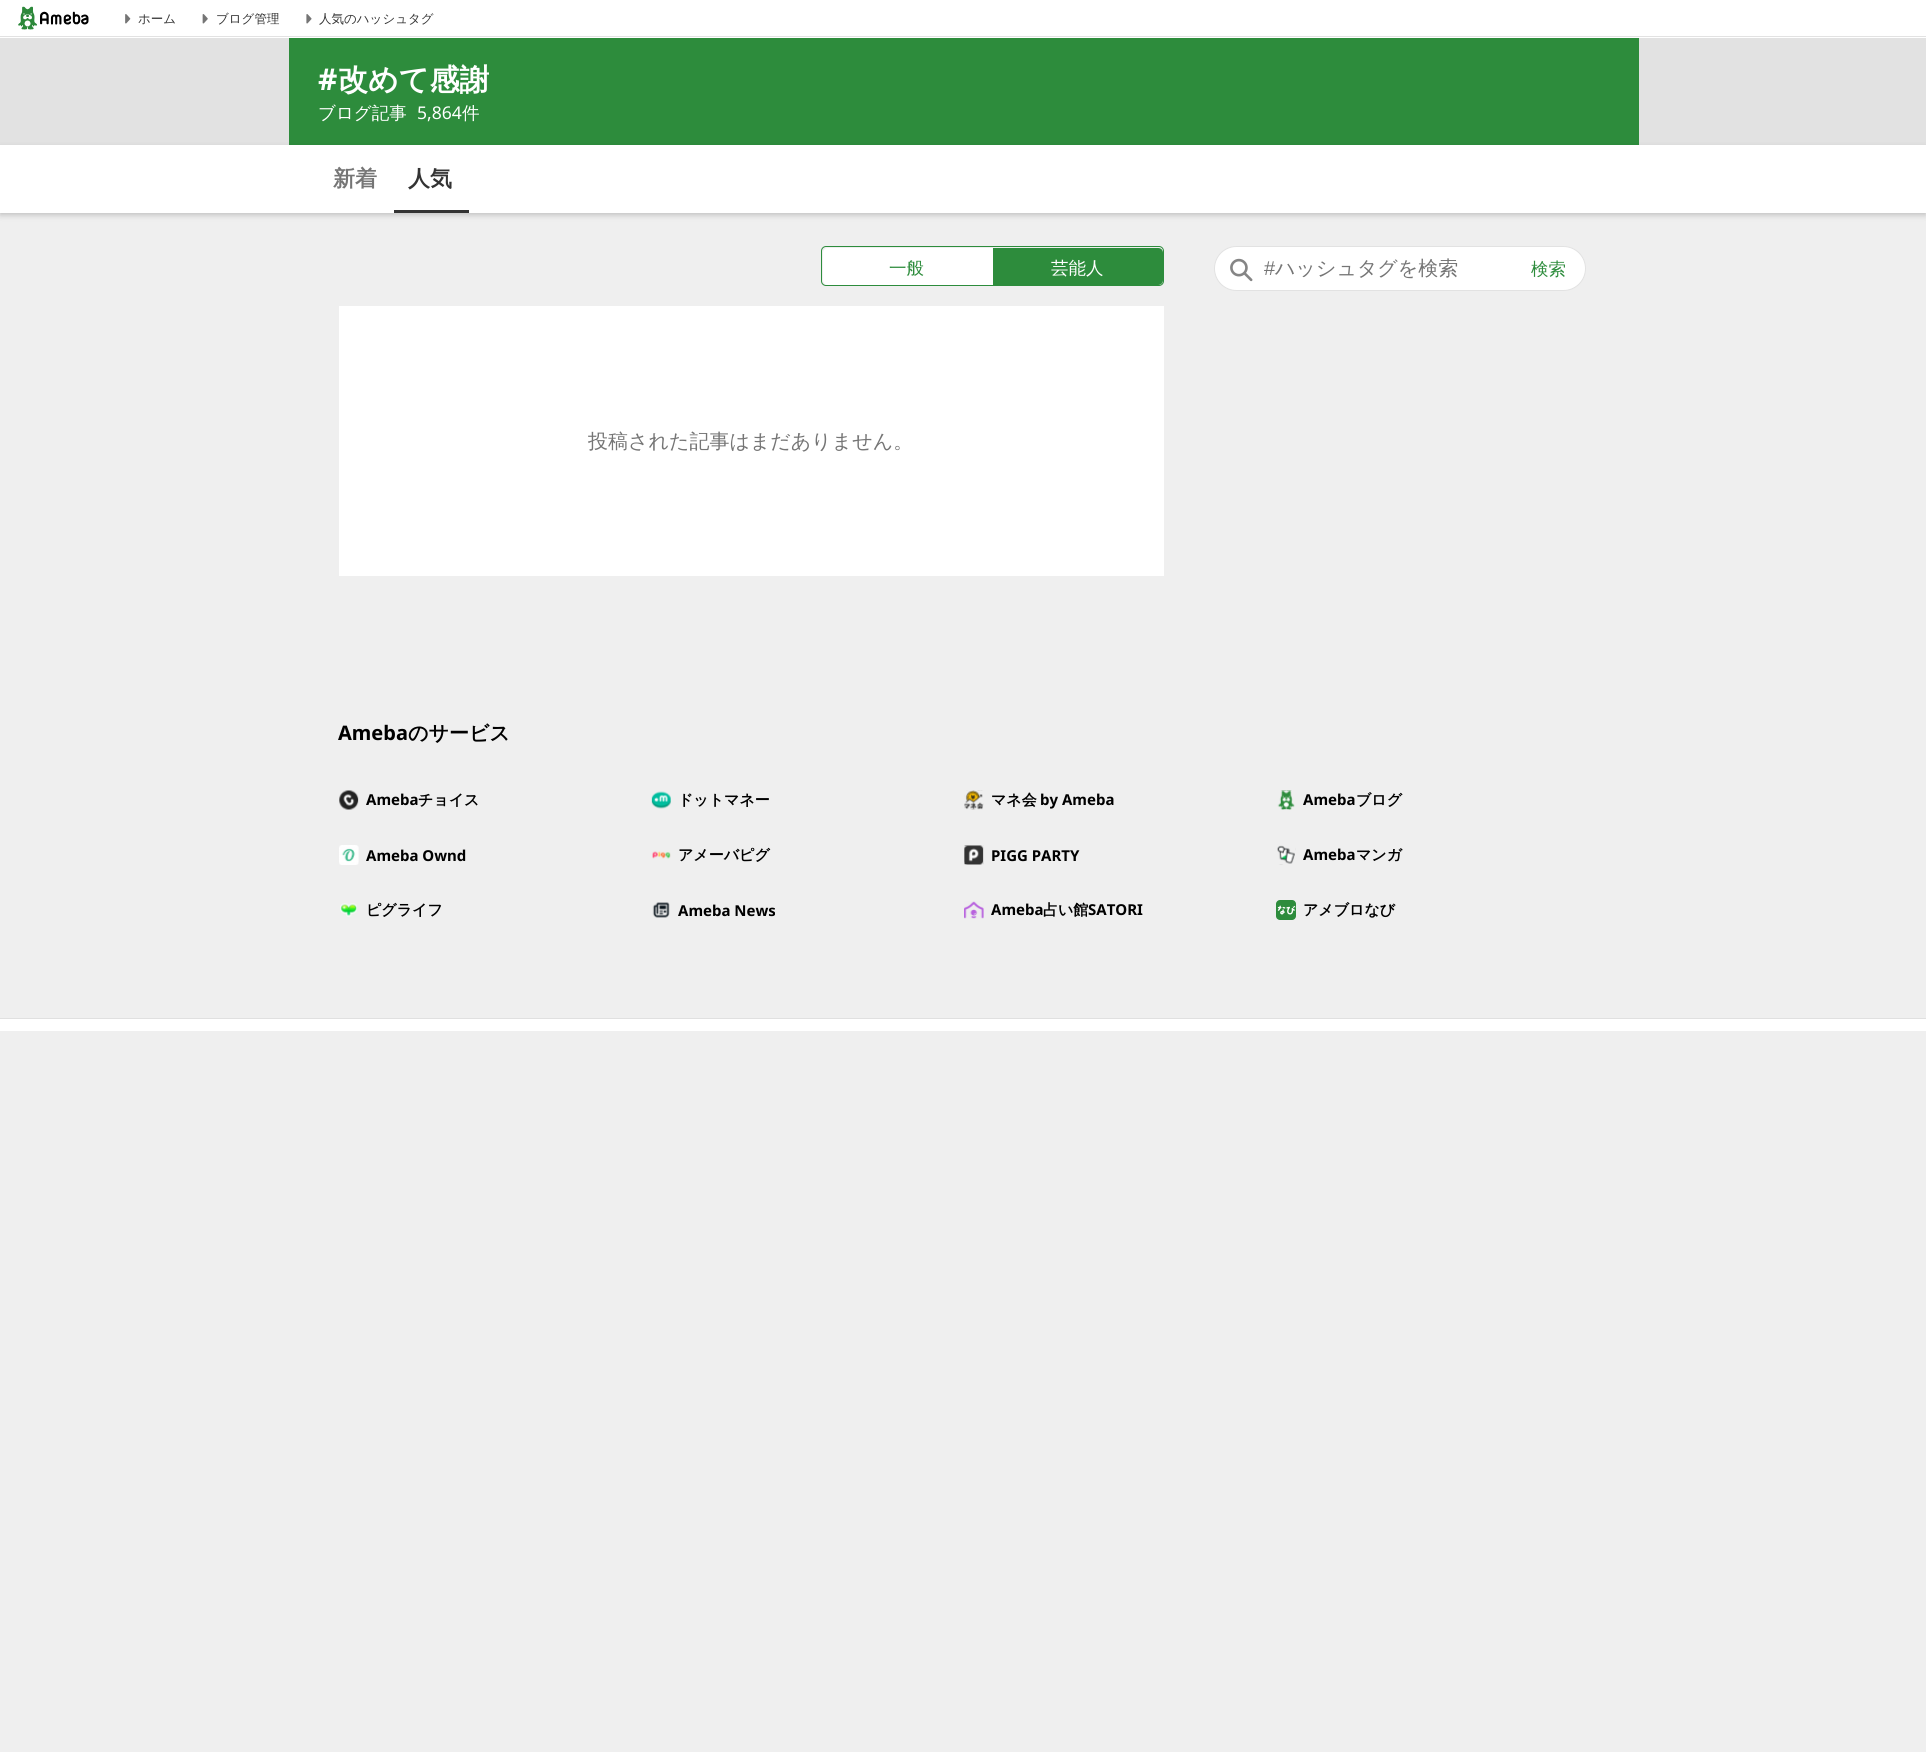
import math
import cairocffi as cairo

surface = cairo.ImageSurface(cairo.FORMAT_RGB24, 1926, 1752)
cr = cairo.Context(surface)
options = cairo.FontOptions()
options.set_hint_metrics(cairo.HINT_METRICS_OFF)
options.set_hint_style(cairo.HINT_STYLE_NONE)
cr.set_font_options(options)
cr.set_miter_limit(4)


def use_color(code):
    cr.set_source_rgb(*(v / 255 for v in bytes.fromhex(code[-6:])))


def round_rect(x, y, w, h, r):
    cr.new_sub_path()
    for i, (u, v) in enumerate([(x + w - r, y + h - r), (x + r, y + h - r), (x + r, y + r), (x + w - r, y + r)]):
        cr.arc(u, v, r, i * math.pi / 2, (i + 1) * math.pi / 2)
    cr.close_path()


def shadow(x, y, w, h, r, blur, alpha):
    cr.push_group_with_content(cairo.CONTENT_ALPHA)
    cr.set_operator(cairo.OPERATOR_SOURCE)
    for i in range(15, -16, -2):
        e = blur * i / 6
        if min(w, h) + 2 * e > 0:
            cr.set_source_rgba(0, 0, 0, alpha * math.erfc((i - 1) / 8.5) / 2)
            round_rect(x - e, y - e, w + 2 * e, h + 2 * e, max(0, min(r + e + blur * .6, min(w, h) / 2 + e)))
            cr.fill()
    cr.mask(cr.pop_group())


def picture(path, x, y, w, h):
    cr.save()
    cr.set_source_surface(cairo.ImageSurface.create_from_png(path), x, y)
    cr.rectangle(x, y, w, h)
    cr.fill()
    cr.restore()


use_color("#efefef")
cr.paint()
use_color("#ffffff")
cr.rectangle(0, 0, 1926, 38)
cr.fill()
use_color("#e2e2e2")
cr.rectangle(0, 36, 1926, 1)
cr.fill()
picture("img1.png", 18, 6, 71, 24)
picture("img2.png", 125, 14, 6, 10)
cr.select_font_face("WenQuanYi Zen Hei Medium")
cr.set_font_size(12.5)
use_color("#333333")
cr.move_to(138, 23)
cr.show_text("ホーム")
picture("img3.png", 202, 14, 6, 10)
cr.move_to(216, 23)
cr.show_text("ブログ管理")
picture("img4.png", 306, 14, 6, 10)
cr.move_to(319, 23)
cr.show_text("人気のハッシュタグ")
use_color("#e2e2e2")
cr.rectangle(0, 38, 1926, 107)
cr.fill()
use_color("#2d8c3c")
cr.rectangle(289, 38, 1350, 107)
cr.fill()
cr.select_font_face("Noto Sans", cairo.FONT_SLANT_NORMAL, cairo.FONT_WEIGHT_BOLD)
cr.set_font_size(30)
use_color("#ffffff")
cr.move_to(318, 90)
cr.show_text("#")
cr.select_font_face("WenQuanYi Zen Hei", cairo.FONT_SLANT_NORMAL, cairo.FONT_WEIGHT_BOLD)
cr.move_to(338, 90)
cr.show_text("改めて感謝")
cr.select_font_face("WenQuanYi Zen Hei Medium")
cr.set_font_size(17.5)
cr.move_to(318, 119)
cr.show_text("ブログ記事")
cr.select_font_face("Noto Sans")
cr.move_to(417, 119)
cr.show_text("5,864")
cr.select_font_face("WenQuanYi Zen Hei Medium")
cr.move_to(462, 119)
cr.show_text("件")
use_color("#000000")
shadow(0, 148, 1926, 67, 0, 3, 0.2)
use_color("#ffffff")
cr.rectangle(0, 145, 1926, 68)
cr.fill()
cr.select_font_face("WenQuanYi Zen Hei", cairo.FONT_SLANT_NORMAL, cairo.FONT_WEIGHT_BOLD)
cr.set_font_size(22)
use_color("#757575")
cr.move_to(333, 186)
cr.show_text("新着")
use_color("#333333")
cr.rectangle(394, 210, 75, 3)
cr.fill()
cr.move_to(408, 186)
cr.show_text("人気")
round_rect(821.5, 246.5, 342, 39, 4.5)
use_color("#2d8c3c")
cr.set_line_width(1)
cr.stroke()
use_color("#ffffff")
cr.new_path()
cr.move_to(828, 248)
cr.line_to(993, 248)
cr.line_to(993, 285)
cr.line_to(828, 285)
cr.curve_to(825, 285, 823, 283, 823, 280)
cr.line_to(823, 253)
cr.curve_to(823, 250, 825, 248, 828, 248)
cr.close_path()
cr.fill()
cr.select_font_face("WenQuanYi Zen Hei Medium")
cr.set_font_size(17.5)
use_color("#2d8c3c")
cr.move_to(889, 274)
cr.show_text("一般")
cr.new_path()
cr.move_to(993, 248)
cr.line_to(1158, 248)
cr.curve_to(1161, 248, 1163, 250, 1163, 253)
cr.line_to(1163, 280)
cr.curve_to(1163, 283, 1161, 285, 1158, 285)
cr.line_to(993, 285)
cr.close_path()
cr.fill()
use_color("#ffffff")
cr.move_to(1051, 274)
cr.show_text("芸能人")
cr.rectangle(339, 306, 825, 270)
cr.fill()
cr.set_font_size(20)
use_color("#757575")
cr.move_to(588, 448)
cr.show_text("投稿された記事はまだありません。")
use_color("#ffffff")
round_rect(1214.5, 246.5, 371, 44, 22)
cr.fill_preserve()
use_color("#e2e2e2")
cr.stroke()
picture("img5.png", 1230, 258, 23, 24)
cr.select_font_face("Liberation Sans")
use_color("#757575")
cr.move_to(1264, 275)
cr.show_text("#")
cr.select_font_face("WenQuanYi Zen Hei Medium")
cr.move_to(1275, 275)
cr.show_text("ハッシュタグを検索")
cr.set_font_size(17.5)
use_color("#2d8c3c")
cr.move_to(1531, 275)
cr.show_text("検索")
cr.select_font_face("Noto Sans", cairo.FONT_SLANT_NORMAL, cairo.FONT_WEIGHT_BOLD)
cr.set_font_size(20)
use_color("#000000")
cr.move_to(338, 740)
cr.show_text("Ameba")
cr.select_font_face("WenQuanYi Zen Hei", cairo.FONT_SLANT_NORMAL, cairo.FONT_WEIGHT_BOLD)
cr.move_to(408, 740)
cr.show_text("のサービス")
picture("img6.png", 339, 790, 20, 20)
cr.select_font_face("Noto Sans", cairo.FONT_SLANT_NORMAL, cairo.FONT_WEIGHT_BOLD)
cr.set_font_size(15)
cr.move_to(366, 805)
cr.show_text("Ameba")
cr.select_font_face("WenQuanYi Zen Hei", cairo.FONT_SLANT_NORMAL, cairo.FONT_WEIGHT_BOLD)
cr.move_to(418, 805)
cr.show_text("チョイス")
picture("img7.png", 651, 791, 20, 18)
cr.move_to(678, 805)
cr.show_text("ドットマネー")
picture("img8.png", 964, 790, 20, 20)
cr.move_to(991, 805)
cr.show_text("マネ会")
cr.select_font_face("Noto Sans", cairo.FONT_SLANT_NORMAL, cairo.FONT_WEIGHT_BOLD)
cr.move_to(1040, 805)
cr.show_text("by Ameba")
picture("img9.png", 1277, 790, 18, 20)
cr.move_to(1303, 805)
cr.show_text("Ameba")
cr.select_font_face("WenQuanYi Zen Hei", cairo.FONT_SLANT_NORMAL, cairo.FONT_WEIGHT_BOLD)
cr.move_to(1356, 805)
cr.show_text("ブログ")
picture("img10.png", 339, 845, 20, 20)
cr.select_font_face("Noto Sans", cairo.FONT_SLANT_NORMAL, cairo.FONT_WEIGHT_BOLD)
cr.move_to(366, 861)
cr.show_text("Ameba Ownd")
picture("img11.png", 652, 851, 19, 8)
cr.select_font_face("WenQuanYi Zen Hei", cairo.FONT_SLANT_NORMAL, cairo.FONT_WEIGHT_BOLD)
cr.move_to(678, 860)
cr.show_text("アメーバピグ")
picture("img12.png", 964, 845, 20, 20)
cr.select_font_face("Noto Sans", cairo.FONT_SLANT_NORMAL, cairo.FONT_WEIGHT_BOLD)
cr.move_to(991, 861)
cr.show_text("PIGG PARTY")
picture("img13.png", 1277, 845, 19, 20)
cr.move_to(1303, 860)
cr.show_text("Ameba")
cr.select_font_face("WenQuanYi Zen Hei", cairo.FONT_SLANT_NORMAL, cairo.FONT_WEIGHT_BOLD)
cr.move_to(1356, 860)
cr.show_text("マンガ")
picture("img14.png", 340, 903, 17, 14)
cr.move_to(366, 915)
cr.show_text("ピグライフ")
picture("img15.png", 652, 902, 18, 16)
cr.select_font_face("Noto Sans", cairo.FONT_SLANT_NORMAL, cairo.FONT_WEIGHT_BOLD)
cr.move_to(678, 916)
cr.show_text("Ameba News")
picture("img16.png", 964, 901, 20, 18)
cr.move_to(991, 915)
cr.show_text("Ameba")
cr.select_font_face("WenQuanYi Zen Hei", cairo.FONT_SLANT_NORMAL, cairo.FONT_WEIGHT_BOLD)
cr.move_to(1043, 915)
cr.show_text("占い館")
cr.select_font_face("Noto Sans", cairo.FONT_SLANT_NORMAL, cairo.FONT_WEIGHT_BOLD)
cr.move_to(1088, 915)
cr.show_text("SATORI")
picture("img17.png", 1276, 900, 20, 20)
cr.select_font_face("WenQuanYi Zen Hei", cairo.FONT_SLANT_NORMAL, cairo.FONT_WEIGHT_BOLD)
cr.move_to(1303, 915)
cr.show_text("アメブロなび")
use_color("#ffffff")
cr.rectangle(0, 1019, 1926, 12)
cr.fill()
use_color("#e0e0e0")
cr.rectangle(0, 1018, 1926, 1)
cr.fill()
surface.write_to_png("result.png")
